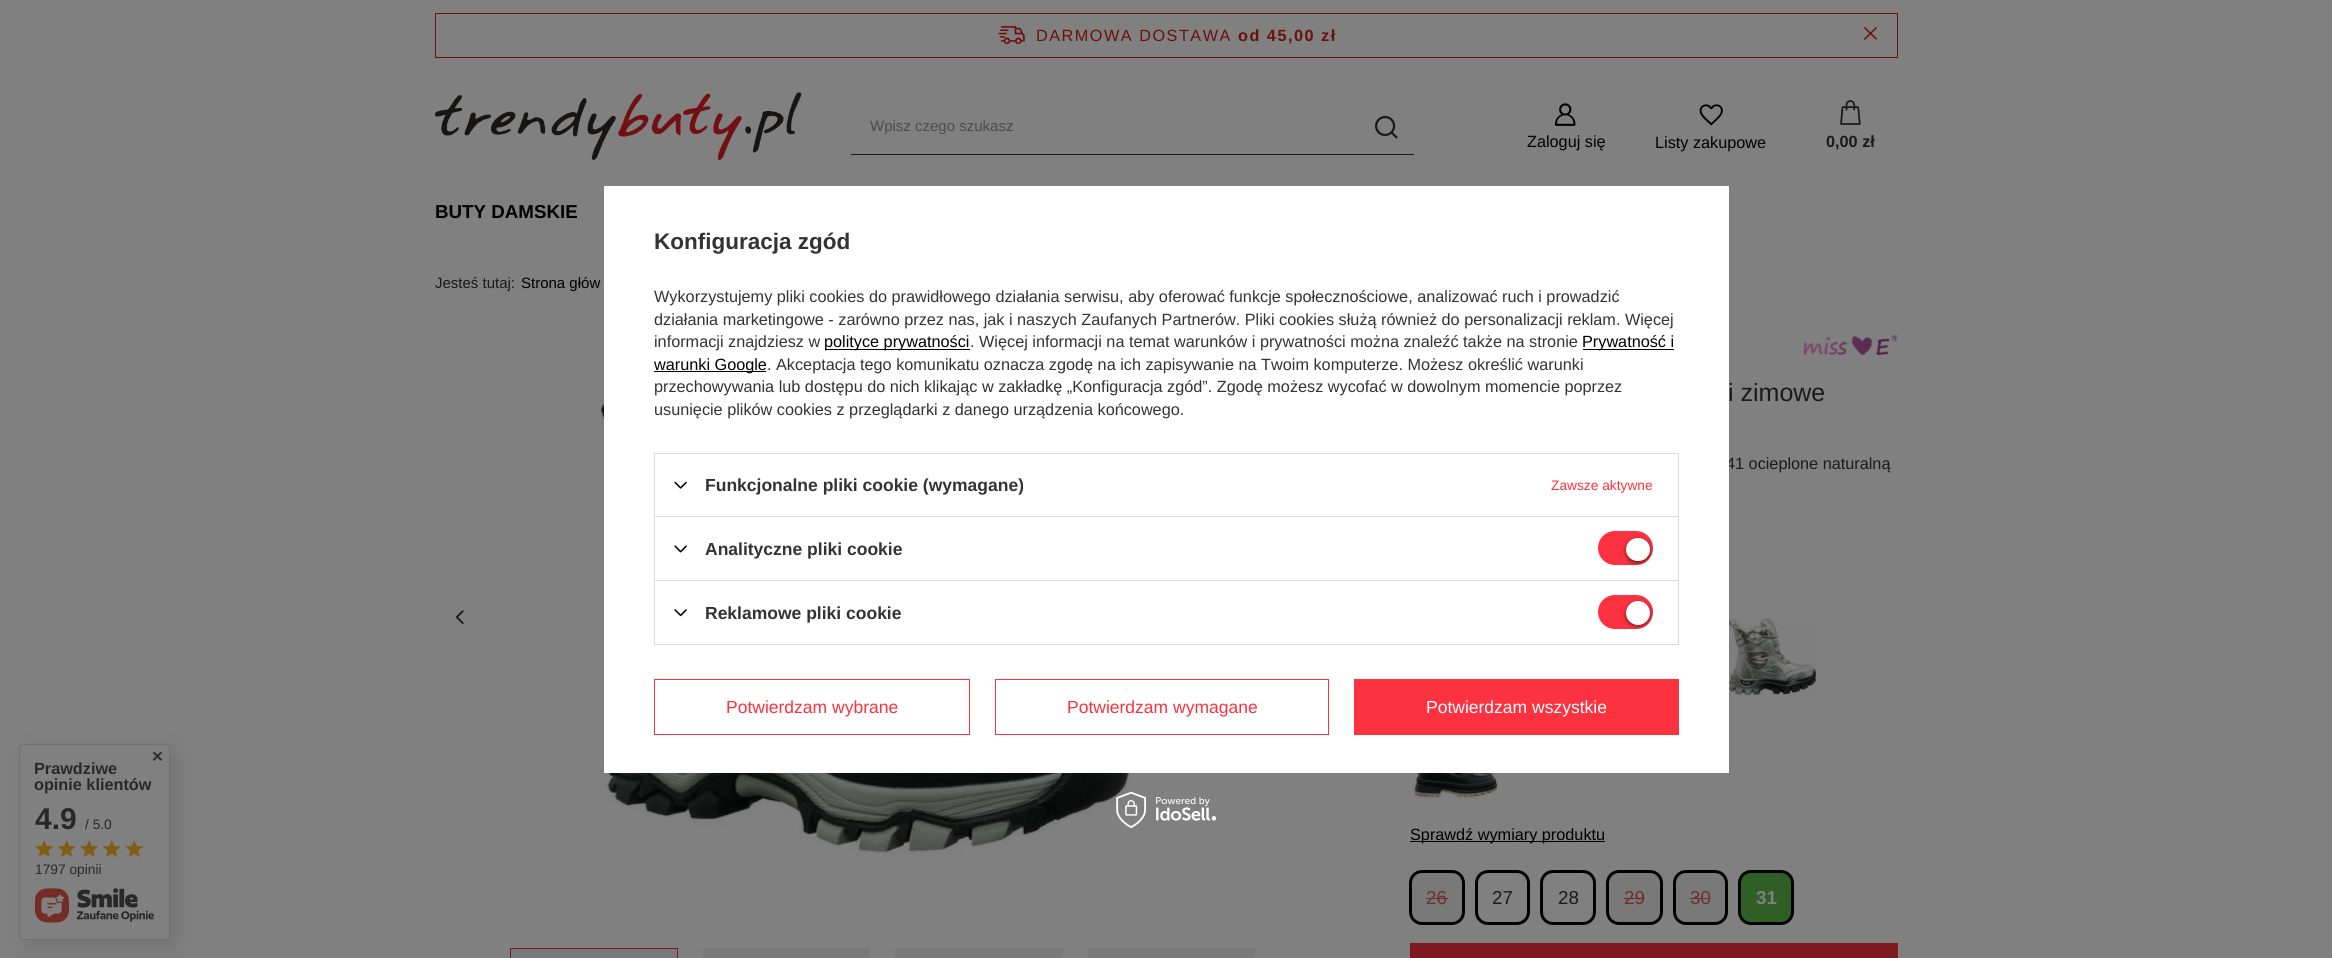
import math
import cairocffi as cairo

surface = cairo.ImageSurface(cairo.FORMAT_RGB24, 2332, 958)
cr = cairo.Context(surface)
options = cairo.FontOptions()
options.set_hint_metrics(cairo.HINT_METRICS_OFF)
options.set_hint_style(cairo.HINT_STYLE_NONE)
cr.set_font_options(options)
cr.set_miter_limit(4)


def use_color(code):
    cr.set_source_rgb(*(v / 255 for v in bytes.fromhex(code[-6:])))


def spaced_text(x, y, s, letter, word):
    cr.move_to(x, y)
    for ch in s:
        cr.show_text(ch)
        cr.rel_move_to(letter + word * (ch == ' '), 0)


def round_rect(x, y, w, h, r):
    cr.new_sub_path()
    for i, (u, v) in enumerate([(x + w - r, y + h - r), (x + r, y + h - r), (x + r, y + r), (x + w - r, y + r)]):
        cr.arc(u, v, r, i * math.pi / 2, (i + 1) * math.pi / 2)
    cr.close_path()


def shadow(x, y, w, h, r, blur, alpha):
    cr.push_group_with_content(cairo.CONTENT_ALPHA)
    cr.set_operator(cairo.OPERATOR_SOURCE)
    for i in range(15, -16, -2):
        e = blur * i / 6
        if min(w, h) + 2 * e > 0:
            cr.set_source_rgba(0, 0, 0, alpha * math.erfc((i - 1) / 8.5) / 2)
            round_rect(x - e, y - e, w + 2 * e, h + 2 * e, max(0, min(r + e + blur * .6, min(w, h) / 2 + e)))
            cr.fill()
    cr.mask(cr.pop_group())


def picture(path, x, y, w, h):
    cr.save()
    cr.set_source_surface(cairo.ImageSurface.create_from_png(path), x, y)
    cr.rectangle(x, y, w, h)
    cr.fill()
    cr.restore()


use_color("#808080")
cr.paint()
cr.rectangle(435.5, 13.5, 1462, 44)
use_color("#6c0f0f")
cr.set_line_width(1)
cr.stroke()
picture("img1.png", 998, 26, 27, 19)
cr.select_font_face("Liberation Sans")
cr.set_font_size(16.25)
spaced_text(1036, 41, "DARMOWA DOSTAWA", 1.5, 0)
cr.select_font_face("Liberation Sans", cairo.FONT_SLANT_NORMAL, cairo.FONT_WEIGHT_BOLD)
spaced_text(1238, 41, "od 45,00 zł", 1.5, 0)
picture("img2.png", 1863, 26, 15, 14)
picture("img3.png", 435, 92, 367, 68)
use_color("#1a1a1a")
cr.rectangle(851, 154, 563, 1)
cr.fill()
cr.select_font_face("Liberation Sans")
cr.set_font_size(15)
use_color("#4c4c4c")
cr.move_to(870, 131)
cr.show_text("Wpisz czego szukasz")
picture("img4.png", 1375, 115, 23, 24)
picture("img5.png", 1555, 103, 21, 23)
cr.set_font_size(16.25)
use_color("#000000")
cr.move_to(1527, 147)
cr.show_text("Zaloguj się")
picture("img6.png", 1699, 104, 24, 22)
cr.move_to(1655, 148)
cr.show_text("Listy zakupowe")
picture("img7.png", 1840, 100, 21, 25)
cr.select_font_face("Liberation Sans", cairo.FONT_SLANT_NORMAL, cairo.FONT_WEIGHT_BOLD)
use_color("#1a1a1a")
cr.move_to(1826, 147)
cr.show_text("0,00 zł")
cr.set_font_size(18.75)
use_color("#000000")
cr.move_to(435, 218)
cr.show_text("BUTY DAMSKIE")
cr.select_font_face("Liberation Sans")
cr.set_font_size(15)
use_color("#1a1a1a")
cr.move_to(435, 288)
cr.show_text("Jesteś tutaj:")
use_color("#000000")
cr.move_to(521, 288)
cr.show_text("Strona głów")
picture("img8.png", 455, 610, 9, 14)
picture("img9.png", 601, 379, 535, 476)
use_color("#797979")
cr.rectangle(510.5, 948.5, 167, 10)
cr.fill_preserve()
use_color("#7e1920")
cr.stroke()
use_color("#797979")
cr.rectangle(703, 948, 167, 10)
cr.fill()
cr.rectangle(895, 948, 168, 10)
cr.fill()
cr.rectangle(1088, 948, 167, 10)
cr.fill()
picture("img10.png", 1803, 335, 95, 20)
cr.set_font_size(25)
use_color("#1a1a1a")
cr.move_to(1728, 401)
cr.show_text("i zimowe")
cr.set_font_size(16.25)
cr.move_to(1726, 469)
cr.show_text("41 ocieplone naturalną")
picture("img11.png", 1729, 618, 88, 78)
picture("img12.png", 1410, 773, 88, 26)
use_color("#000000")
cr.rectangle(1410, 841, 195, 1)
cr.fill()
cr.move_to(1410, 840)
cr.show_text("Sprawdź wymiary produktu")
use_color("#797979")
round_rect(1410.5, 871.5, 53, 52, 11.5)
cr.fill_preserve()
use_color("#000000")
cr.set_line_width(3)
cr.stroke()
cr.set_font_size(18.75)
use_color("#722e2e")
cr.move_to(1426, 904)
cr.show_text("26")
cr.rectangle(1426, 898, 22, 1)
cr.fill()
round_rect(1476.5, 871.5, 52, 52, 11.5)
use_color("#000000")
cr.stroke()
use_color("#1a1a1a")
cr.move_to(1492, 904)
cr.show_text("27")
round_rect(1541.5, 871.5, 53, 52, 11.5)
use_color("#000000")
cr.stroke()
use_color("#1a1a1a")
cr.move_to(1558, 904)
cr.show_text("28")
use_color("#797979")
round_rect(1607.5, 871.5, 54, 52, 11.5)
cr.fill_preserve()
use_color("#000000")
cr.stroke()
use_color("#722e2e")
cr.move_to(1624, 904)
cr.show_text("29")
cr.rectangle(1624, 898, 21, 1)
cr.fill()
use_color("#797979")
round_rect(1674.5, 871.5, 52, 52, 11.5)
cr.fill_preserve()
use_color("#000000")
cr.stroke()
use_color("#722e2e")
cr.move_to(1690, 904)
cr.show_text("30")
cr.rectangle(1690, 898, 20, 1)
cr.fill()
use_color("#305f26")
round_rect(1739.5, 871.5, 53, 52, 11.5)
cr.fill_preserve()
use_color("#000000")
cr.stroke()
cr.select_font_face("Liberation Sans", cairo.FONT_SLANT_NORMAL, cairo.FONT_WEIGHT_BOLD)
use_color("#808080")
cr.move_to(1756, 904)
cr.show_text("31")
use_color("#7e1920")
cr.rectangle(1410, 943, 488, 15)
cr.fill()
use_color("#ffffff")
cr.rectangle(604, 186, 1125, 587)
cr.fill()
cr.set_font_size(22.5)
use_color("#333333")
cr.move_to(654, 249)
cr.show_text("Konfiguracja zgód")
cr.select_font_face("Liberation Sans")
cr.set_font_size(16.25)
cr.move_to(654, 302)
cr.show_text("Wykorzystujemy pliki cookies do prawidłowego działania serwisu, aby oferować funkcje społecznościowe, analizować ruch i prowadzić")
cr.move_to(654, 325)
cr.show_text("działania marketingowe - zarówno przez nas, jak i naszych Zaufanych Partnerów. Pliki cookies służą również do personalizacji reklam. Więcej")
cr.move_to(654, 347)
cr.show_text("informacji znajdziesz w")
use_color("#000000")
cr.rectangle(825, 349, 145, 1)
cr.fill()
cr.move_to(824, 347)
cr.show_text("polityce prywatności")
use_color("#333333")
cr.move_to(970, 347)
cr.show_text(". Więcej informacji na temat warunków i prywatności można znaleźć także na stronie")
use_color("#000000")
cr.rectangle(1583, 349, 91, 1)
cr.fill()
cr.move_to(1582, 347)
cr.show_text("Prywatność i")
cr.rectangle(654, 371, 112, 1)
cr.fill()
cr.move_to(654, 370)
cr.show_text("warunki Google")
use_color("#333333")
cr.move_to(767, 370)
cr.show_text(". Akceptacja tego komunikatu oznacza zgodę na ich zapisywanie na Twoim komputerze. Możesz określić warunki")
cr.move_to(654, 392)
cr.show_text("przechowywania lub dostępu do nich klikając w zakładkę „Konfiguracja zgód”. Zgodę możesz wycofać w dowolnym momencie poprzez")
cr.move_to(654, 415)
cr.show_text("usunięcie plików cookies z przeglądarki z danego urządzenia końcowego.")
use_color("#dbdbdb")
cr.rectangle(654, 453, 1025, 1)
cr.fill()
cr.rectangle(1678, 453, 1, 63)
cr.fill()
cr.rectangle(654, 453, 1, 63)
cr.fill()
picture("img13.png", 674, 481, 13, 8)
cr.select_font_face("Liberation Sans", cairo.FONT_SLANT_NORMAL, cairo.FONT_WEIGHT_BOLD)
cr.set_font_size(17.5)
use_color("#333333")
cr.move_to(705, 491)
cr.show_text("Funkcjonalne pliki cookie (wymagane)")
cr.select_font_face("Liberation Sans")
cr.set_font_size(13.75)
use_color("#fc3240")
cr.move_to(1551, 490)
cr.show_text("Zawsze aktywne")
use_color("#dbdbdb")
cr.rectangle(654, 516, 1025, 1)
cr.fill()
cr.rectangle(1678, 516, 1, 64)
cr.fill()
cr.rectangle(654, 516, 1, 64)
cr.fill()
picture("img14.png", 674, 545, 13, 8)
cr.select_font_face("Liberation Sans", cairo.FONT_SLANT_NORMAL, cairo.FONT_WEIGHT_BOLD)
cr.set_font_size(17.5)
use_color("#333333")
cr.move_to(705, 555)
cr.show_text("Analityczne pliki cookie")
use_color("#fc3240")
round_rect(1598, 531, 55, 34, 17)
cr.fill()
use_color("#000000")
shadow(1626, 539, 24, 24, 12, 2, 0.56)
use_color("#ffffff")
round_rect(1626, 538, 24, 23, 11.5)
cr.fill()
cr.rectangle(654.5, 580.5, 1024, 64)
use_color("#dbdbdb")
cr.set_line_width(1)
cr.stroke()
picture("img15.png", 674, 609, 13, 8)
use_color("#333333")
cr.move_to(705, 619)
cr.show_text("Reklamowe pliki cookie")
use_color("#fc3240")
round_rect(1598, 595, 55, 34, 17)
cr.fill()
use_color("#000000")
shadow(1626, 603, 24, 23, 11.5, 2, 0.56)
use_color("#ffffff")
cr.arc(1638, 613, 12, 0, 2 * math.pi)
cr.fill()
cr.rectangle(654.5, 679.5, 315, 55)
use_color("#fc3240")
cr.stroke()
cr.select_font_face("Liberation Sans")
cr.move_to(726, 713)
cr.show_text("Potwierdzam wybrane")
cr.rectangle(995.5, 679.5, 333, 55)
cr.stroke()
cr.move_to(1067, 713)
cr.show_text("Potwierdzam wymagane")
cr.rectangle(1354, 679, 325, 56)
cr.fill()
use_color("#ffffff")
cr.move_to(1426, 713)
cr.show_text("Potwierdzam wszystkie")
picture("img16.png", 1116, 792, 100, 36)
use_color("#000000")
shadow(25, 750, 151, 196, 4, 9.5, 0.1)
use_color("#808080")
round_rect(19.5, 744.5, 150, 195, 3.5)
cr.fill_preserve()
use_color("#6f6f6f")
cr.stroke()
picture("img17.png", 152, 751, 11, 10)
cr.select_font_face("Liberation Sans", cairo.FONT_SLANT_NORMAL, cairo.FONT_WEIGHT_BOLD)
cr.set_font_size(16.25)
use_color("#282828")
cr.move_to(34, 774)
cr.show_text("Prawdziwe")
cr.move_to(34, 790)
cr.show_text("opinie klientów")
cr.set_font_size(30)
cr.move_to(35, 829)
cr.show_text("4.9")
cr.select_font_face("Liberation Sans")
cr.set_font_size(13.75)
cr.move_to(85, 829)
cr.show_text("/ 5.0")
picture("img18.png", 35, 840, 19, 17)
picture("img19.png", 58, 840, 18, 17)
picture("img18.png", 80, 840, 19, 17)
picture("img19.png", 103, 840, 18, 17)
picture("img18.png", 125, 840, 19, 17)
cr.move_to(35, 874)
cr.show_text("1797 opinii")
picture("img20.png", 34, 888, 120, 35)
surface.write_to_png("result.png")
